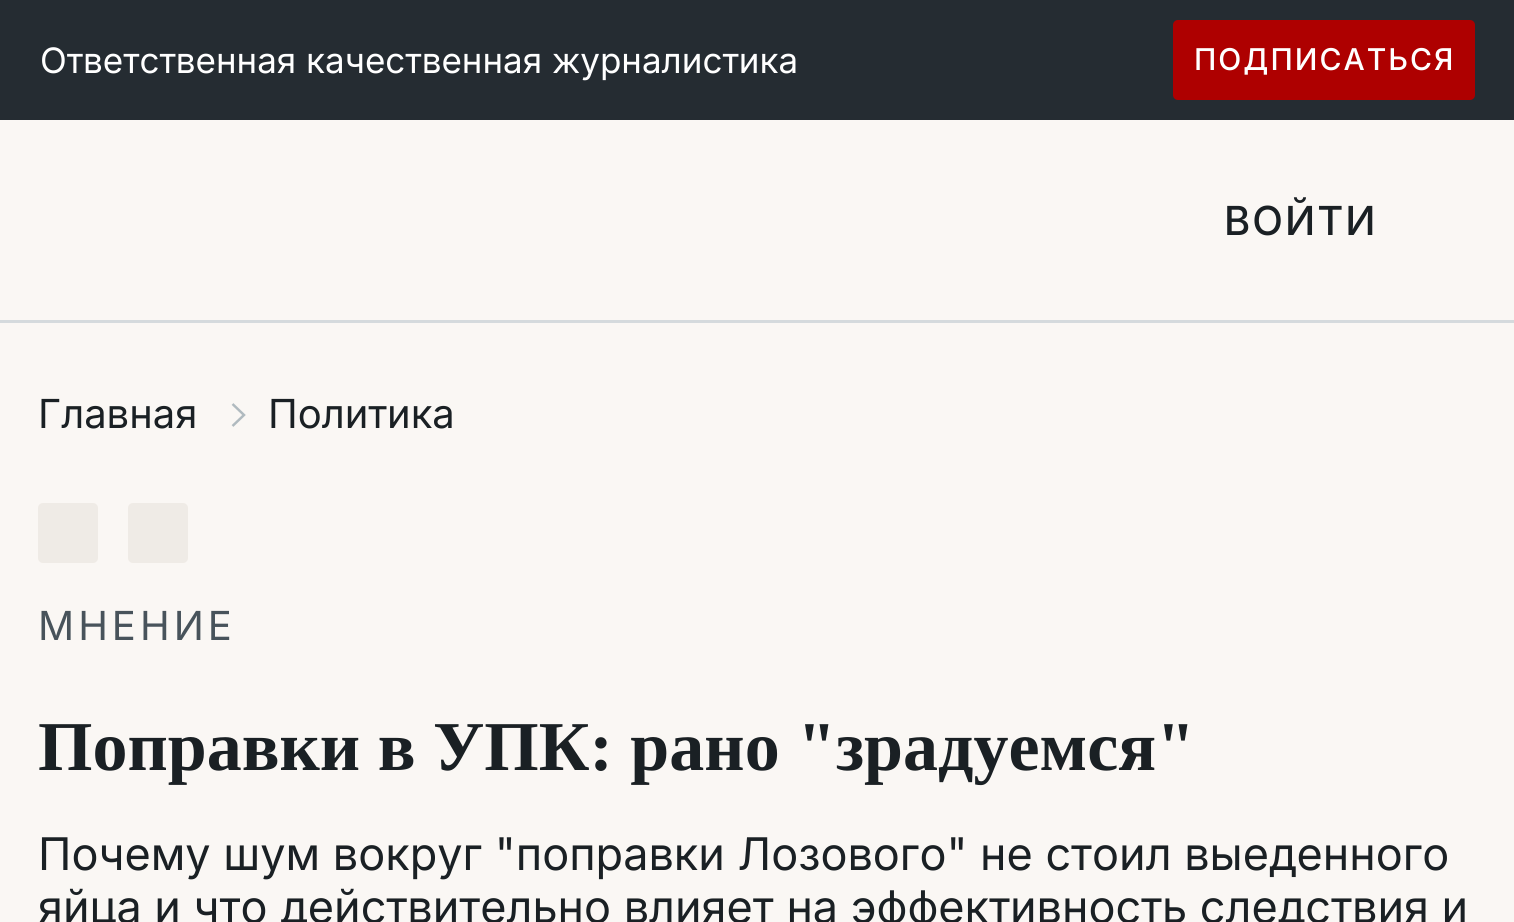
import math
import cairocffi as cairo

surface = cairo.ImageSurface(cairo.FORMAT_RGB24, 1514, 922)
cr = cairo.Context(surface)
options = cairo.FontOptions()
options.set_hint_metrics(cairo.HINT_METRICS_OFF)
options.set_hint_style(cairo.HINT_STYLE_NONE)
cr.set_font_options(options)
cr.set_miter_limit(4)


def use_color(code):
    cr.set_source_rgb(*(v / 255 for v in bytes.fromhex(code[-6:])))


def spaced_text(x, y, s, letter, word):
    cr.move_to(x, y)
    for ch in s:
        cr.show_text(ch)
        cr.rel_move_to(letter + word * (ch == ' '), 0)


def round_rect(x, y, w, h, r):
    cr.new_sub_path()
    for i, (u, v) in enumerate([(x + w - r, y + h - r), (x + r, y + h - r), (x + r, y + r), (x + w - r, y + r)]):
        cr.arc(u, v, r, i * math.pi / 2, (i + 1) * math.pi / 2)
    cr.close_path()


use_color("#faf7f4")
cr.paint()
use_color("#252c32")
cr.rectangle(0, 0, 1514, 120)
cr.fill()
cr.select_font_face("Inter")
cr.set_font_size(35)
use_color("#ffffff")
cr.move_to(40, 73)
cr.show_text("Ответственная качественная журналистика")
use_color("#ae0000")
round_rect(1173, 20, 302, 80, 5)
cr.fill()
cr.select_font_face("Inter Medium")
cr.set_font_size(30)
use_color("#ffffff")
spaced_text(1194, 70, "ПОДПИСАТЬСЯ", 2, 0)
use_color("#d5dadd")
cr.rectangle(0, 320, 1514, 3)
cr.fill()
cr.set_font_size(40)
use_color("#1a2024")
spaced_text(1224, 235, "ВОЙТИ", 2, 0)
cr.select_font_face("Inter")
cr.move_to(38, 428)
cr.show_text("Главная")
cr.new_path()
cr.move_to(232.5, 404)
cr.line_to(244, 415)
cr.line_to(232.5, 426)
use_color("#b0babf")
cr.set_line_width(2.5)
cr.stroke()
use_color("#1a2024")
cr.move_to(268, 428)
cr.show_text("Политика")
use_color("#efebe6")
round_rect(38, 503, 60, 60, 5)
cr.fill()
round_rect(128, 503, 60, 60, 5)
cr.fill()
use_color("#48535b")
spaced_text(38, 640, "МНЕНИЕ", 4, 0)
cr.select_font_face("Tinos", cairo.FONT_SLANT_NORMAL, cairo.FONT_WEIGHT_BOLD)
cr.set_font_size(70)
use_color("#1a2024")
cr.move_to(38, 770)
cr.show_text("Поправки в УПК: рано \"зрадуемся\"")
cr.select_font_face("Inter")
cr.set_font_size(45)
cr.move_to(38, 870)
cr.show_text("Почему шум вокруг \"поправки Лозового\" не стоил выеденного")
cr.move_to(38, 923)
cr.show_text("яйца и что действительно влияет на эффективность следствия и")
surface.write_to_png("result.png")
